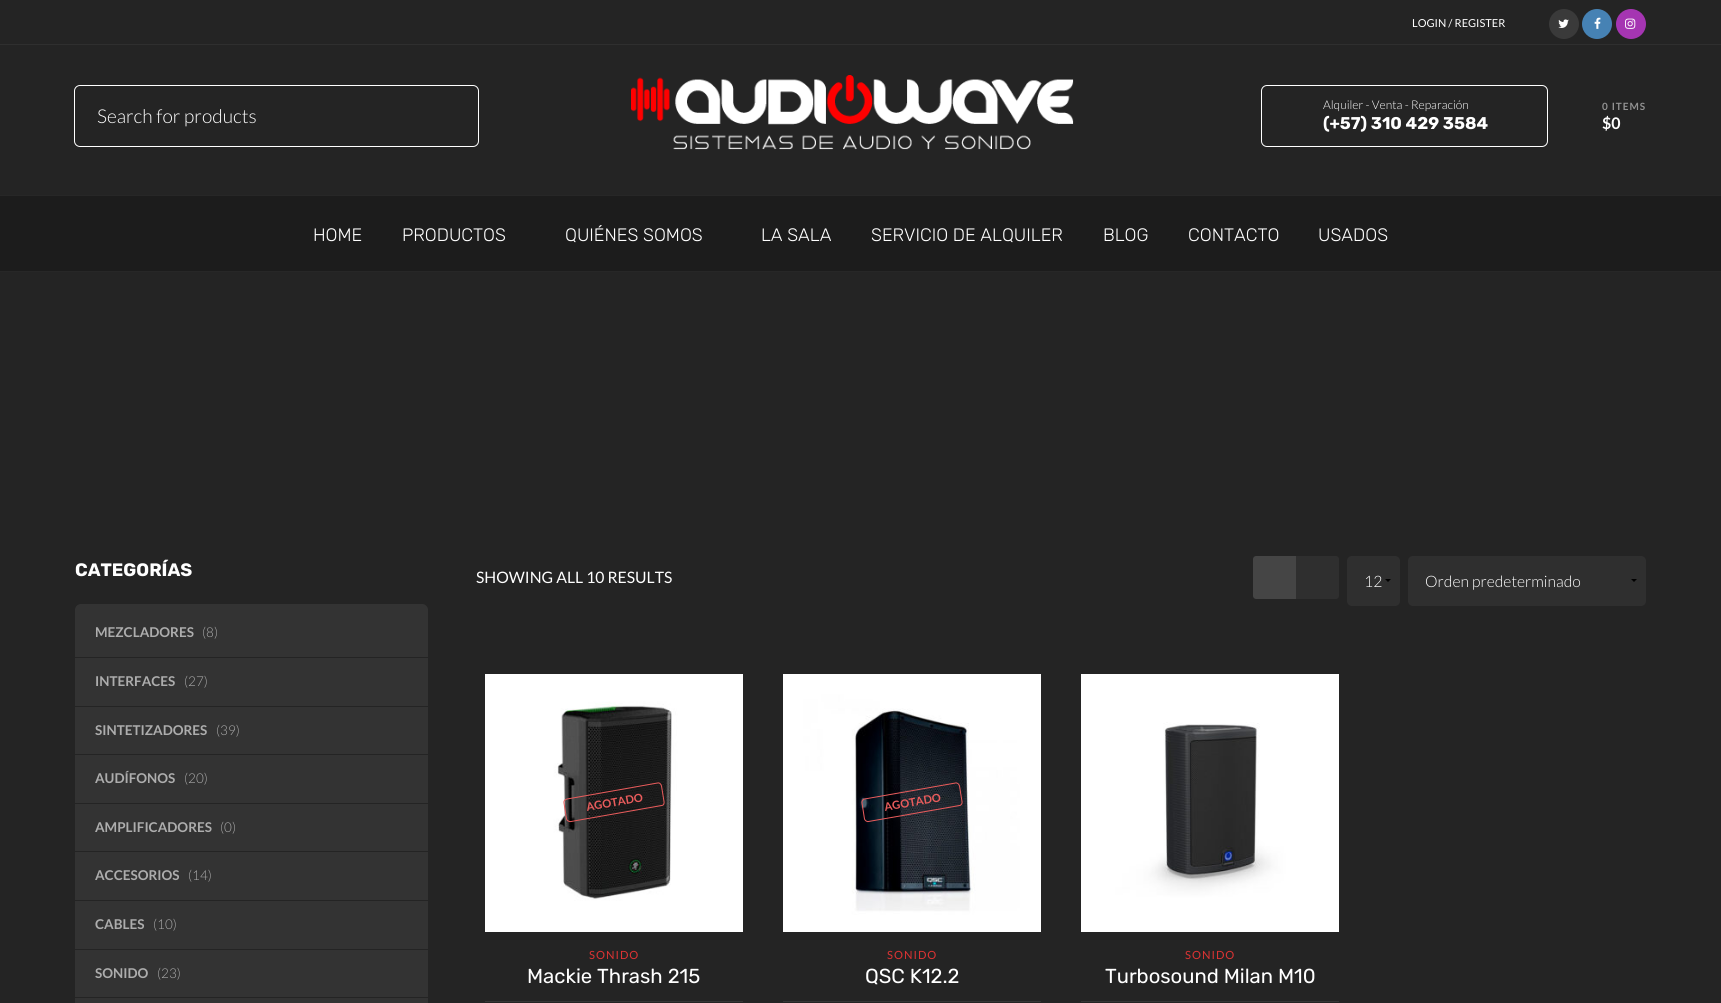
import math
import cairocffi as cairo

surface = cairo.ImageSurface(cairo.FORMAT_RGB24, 1721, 1003)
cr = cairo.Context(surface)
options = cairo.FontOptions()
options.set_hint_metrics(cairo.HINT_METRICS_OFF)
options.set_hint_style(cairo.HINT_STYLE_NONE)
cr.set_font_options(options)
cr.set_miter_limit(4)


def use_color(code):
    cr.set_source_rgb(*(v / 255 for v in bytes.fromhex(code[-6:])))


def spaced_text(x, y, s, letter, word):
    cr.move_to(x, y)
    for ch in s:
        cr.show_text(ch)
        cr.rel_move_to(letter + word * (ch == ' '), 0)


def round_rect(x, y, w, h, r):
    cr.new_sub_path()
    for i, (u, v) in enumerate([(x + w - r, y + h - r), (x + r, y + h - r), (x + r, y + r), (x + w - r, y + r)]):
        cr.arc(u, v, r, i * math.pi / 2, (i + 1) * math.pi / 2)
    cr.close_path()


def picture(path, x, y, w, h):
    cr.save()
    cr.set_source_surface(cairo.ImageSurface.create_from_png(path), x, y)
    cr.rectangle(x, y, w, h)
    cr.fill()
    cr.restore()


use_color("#242424")
cr.paint()
use_color("#2f2f2f")
cr.rectangle(0, 44, 1721, 1)
cr.fill()
cr.select_font_face("Lato")
cr.set_font_size(11)
use_color("#ffffff")
cr.move_to(1412, 27)
cr.show_text("LOGIN / REGISTER")
use_color("#3a3a3a")
cr.new_path()
cr.arc(1564, 24, 15, 0, 2 * math.pi)
cr.fill()
picture("img1.png", 1558, 19, 11, 9)
use_color("#4682b4")
cr.arc(1597, 24, 15, 0, 2 * math.pi)
cr.fill()
picture("img2.png", 1594, 17, 7, 12)
use_color("#a535b2")
cr.arc(1631, 24, 15, 0, 2 * math.pi)
cr.fill()
picture("img3.png", 1625, 18, 11, 11)
round_rect(74.5, 85.5, 404, 61, 5.5)
use_color("#ffffff")
cr.set_line_width(1)
cr.stroke()
cr.select_font_face("Lato Light")
cr.set_font_size(19.1)
cr.move_to(97, 123)
cr.show_text("Search for products")
picture("img4.png", 631, 75, 443, 75)
round_rect(1261.5, 85.5, 286, 61, 5.5)
cr.stroke()
cr.set_font_size(12)
cr.move_to(1323, 109)
cr.show_text("Alquiler - Venta - Reparación")
cr.select_font_face("Rubik", cairo.FONT_SLANT_NORMAL, cairo.FONT_WEIGHT_BOLD)
cr.set_font_size(17)
cr.move_to(1323, 129)
cr.show_text("(+57) 310 429 3584")
cr.select_font_face("Lato", cairo.FONT_SLANT_NORMAL, cairo.FONT_WEIGHT_BOLD)
cr.set_font_size(10)
use_color("#929292")
spaced_text(1602, 110, "0 ITEMS", 1, 0)
cr.set_font_size(16)
use_color("#ffffff")
cr.move_to(1602, 129)
cr.show_text("$0")
use_color("#1c1c1c")
cr.rectangle(0, 196, 1721, 75)
cr.fill()
use_color("#272727")
cr.rectangle(0, 195, 1721, 1)
cr.fill()
cr.rectangle(0, 271, 1721, 1)
cr.fill()
cr.select_font_face("Rubik Light")
cr.set_font_size(18)
use_color("#ffffff")
cr.move_to(313, 241)
cr.show_text("HOME")
cr.move_to(402, 241)
cr.show_text("PRODUCTOS")
cr.move_to(565, 241)
cr.show_text("QUIÉNES SOMOS")
cr.move_to(761, 241)
cr.show_text("LA SALA")
cr.move_to(871, 241)
cr.show_text("SERVICIO DE ALQUILER")
cr.move_to(1103, 241)
cr.show_text("BLOG")
cr.move_to(1188, 241)
cr.show_text("CONTACTO")
cr.move_to(1318, 241)
cr.show_text("USADOS")
cr.select_font_face("Rubik", cairo.FONT_SLANT_NORMAL, cairo.FONT_WEIGHT_BOLD)
cr.move_to(75, 576)
cr.show_text("CATEGORÍAS")
use_color("#333333")
round_rect(75, 604, 353, 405, 6)
cr.fill()
use_color("#242424")
cr.rectangle(75, 657, 353, 1)
cr.fill()
cr.select_font_face("Lato", cairo.FONT_SLANT_NORMAL, cairo.FONT_WEIGHT_BOLD)
cr.set_font_size(13.5)
use_color("#adadad")
cr.move_to(95, 637)
cr.show_text("MEZCLADORES")
cr.select_font_face("Lato Light")
cr.move_to(202, 637)
cr.show_text("(8)")
use_color("#242424")
cr.rectangle(75, 706, 353, 1)
cr.fill()
cr.select_font_face("Lato", cairo.FONT_SLANT_NORMAL, cairo.FONT_WEIGHT_BOLD)
use_color("#adadad")
cr.move_to(95, 686)
cr.show_text("INTERFACES")
cr.select_font_face("Lato Light")
cr.move_to(184, 686)
cr.show_text("(27)")
use_color("#242424")
cr.rectangle(75, 754, 353, 1)
cr.fill()
cr.select_font_face("Lato", cairo.FONT_SLANT_NORMAL, cairo.FONT_WEIGHT_BOLD)
use_color("#adadad")
cr.move_to(95, 735)
cr.show_text("SINTETIZADORES")
cr.select_font_face("Lato Light")
cr.move_to(216, 735)
cr.show_text("(39)")
use_color("#242424")
cr.rectangle(75, 803, 353, 1)
cr.fill()
cr.select_font_face("Lato", cairo.FONT_SLANT_NORMAL, cairo.FONT_WEIGHT_BOLD)
use_color("#adadad")
cr.move_to(95, 783)
cr.show_text("AUDÍFONOS")
cr.select_font_face("Lato Light")
cr.move_to(184, 783)
cr.show_text("(20)")
use_color("#242424")
cr.rectangle(75, 851, 353, 1)
cr.fill()
cr.select_font_face("Lato", cairo.FONT_SLANT_NORMAL, cairo.FONT_WEIGHT_BOLD)
use_color("#adadad")
cr.move_to(95, 832)
cr.show_text("AMPLIFICADORES")
cr.select_font_face("Lato Light")
cr.move_to(220, 832)
cr.show_text("(0)")
use_color("#242424")
cr.rectangle(75, 900, 353, 1)
cr.fill()
cr.select_font_face("Lato", cairo.FONT_SLANT_NORMAL, cairo.FONT_WEIGHT_BOLD)
use_color("#adadad")
cr.move_to(95, 880)
cr.show_text("ACCESORIOS")
cr.select_font_face("Lato Light")
cr.move_to(188, 880)
cr.show_text("(14)")
use_color("#242424")
cr.rectangle(75, 949, 353, 1)
cr.fill()
cr.select_font_face("Lato", cairo.FONT_SLANT_NORMAL, cairo.FONT_WEIGHT_BOLD)
use_color("#adadad")
cr.move_to(95, 929)
cr.show_text("CABLES")
cr.select_font_face("Lato Light")
cr.move_to(153, 929)
cr.show_text("(10)")
use_color("#242424")
cr.rectangle(75, 997, 353, 1)
cr.fill()
cr.select_font_face("Lato", cairo.FONT_SLANT_NORMAL, cairo.FONT_WEIGHT_BOLD)
use_color("#adadad")
cr.move_to(95, 978)
cr.show_text("SONIDO")
cr.select_font_face("Lato Light")
cr.move_to(157, 978)
cr.show_text("(23)")
cr.select_font_face("Lato")
cr.set_font_size(15.75)
use_color("#ffffff")
cr.move_to(476, 583)
cr.show_text("SHOWING ALL 10 RESULTS")
use_color("#454545")
cr.new_path()
cr.move_to(1256, 556)
cr.line_to(1296, 556)
cr.line_to(1296, 599)
cr.line_to(1256, 599)
cr.curve_to(1254.5, 599, 1253, 597.5, 1253, 596)
cr.line_to(1253, 559)
cr.curve_to(1253, 557.5, 1254.5, 556, 1256, 556)
cr.close_path()
cr.fill()
use_color("#2f2f2f")
cr.new_path()
cr.move_to(1296, 556)
cr.line_to(1336, 556)
cr.curve_to(1337.5, 556, 1339, 557.5, 1339, 559)
cr.line_to(1339, 596)
cr.curve_to(1339, 597.5, 1337.5, 599, 1336, 599)
cr.line_to(1296, 599)
cr.close_path()
cr.fill()
round_rect(1347, 556, 53, 50, 5)
cr.fill()
use_color("#000000")
cr.new_path()
cr.move_to(1391, 579)
cr.line_to(1388, 582)
cr.line_to(1385, 579)
cr.close_path()
cr.fill()
cr.select_font_face("Lato Light")
use_color("#ffffff")
cr.move_to(1364, 587)
cr.show_text("12")
use_color("#2f2f2f")
round_rect(1408, 556, 238, 50, 5)
cr.fill()
use_color("#000000")
cr.new_path()
cr.move_to(1637, 579)
cr.line_to(1634, 582)
cr.line_to(1631, 579)
cr.close_path()
cr.fill()
use_color("#ffffff")
cr.move_to(1425, 587)
cr.show_text("Orden predeterminado")
picture("img5.png", 485, 674, 258, 258)
cr.new_path()
cr.move_to(567, 799)
cr.line_to(657.5, 783)
cr.curve_to(659.5, 782.5, 661, 784, 661.5, 786)
cr.line_to(664, 801.5)
cr.curve_to(664.5, 803.5, 663.5, 805.5, 661.5, 805.5)
cr.line_to(571, 821.5)
cr.curve_to(569, 822, 567, 820.5, 566.5, 819)
cr.line_to(564, 803)
cr.curve_to(563.5, 801, 565, 799.5, 567, 799)
cr.close_path()
use_color("#ea5c5c")
cr.stroke()
cr.select_font_face("Lato", cairo.FONT_SLANT_NORMAL, cairo.FONT_WEIGHT_BOLD)
cr.set_font_size(11.25)
cr.save()
cr.translate(587, 811)
cr.rotate(-10 * math.pi / 180)
cr.move_to(0, 0)
cr.show_text("AGOTADO")
cr.restore()
cr.select_font_face("Lato")
use_color("#dd3333")
spaced_text(589, 959, "SONIDO", 1, 0)
cr.select_font_face("Rubik")
cr.set_font_size(20.25)
use_color("#ffffff")
cr.move_to(527, 983)
cr.show_text("Mackie Thrash 215")
use_color("#363636")
cr.rectangle(485, 1001, 258, 1)
cr.fill()
picture("img6.png", 783, 674, 258, 258)
cr.new_path()
cr.move_to(864.5, 799)
cr.line_to(955.5, 783)
cr.curve_to(957, 782.5, 959, 784, 959.5, 786)
cr.line_to(962, 801.5)
cr.curve_to(962.5, 803.5, 961, 805.5, 959.5, 805.5)
cr.line_to(868.5, 821.5)
cr.curve_to(867, 822, 865, 820.5, 864.5, 819)
cr.line_to(862, 803)
cr.curve_to(861.5, 801, 863, 799.5, 864.5, 799)
cr.close_path()
use_color("#ea5c5c")
cr.stroke()
cr.select_font_face("Lato", cairo.FONT_SLANT_NORMAL, cairo.FONT_WEIGHT_BOLD)
cr.set_font_size(11.25)
cr.save()
cr.translate(885, 811)
cr.rotate(-10 * math.pi / 180)
cr.move_to(0, 0)
cr.show_text("AGOTADO")
cr.restore()
cr.select_font_face("Lato")
use_color("#dd3333")
spaced_text(887, 959, "SONIDO", 1, 0)
cr.select_font_face("Rubik")
cr.set_font_size(20.25)
use_color("#ffffff")
cr.move_to(865, 983)
cr.show_text("QSC K12.2")
use_color("#363636")
cr.rectangle(783, 1001, 258, 1)
cr.fill()
picture("img7.png", 1081, 674, 258, 258)
cr.select_font_face("Lato")
cr.set_font_size(11.25)
use_color("#dd3333")
spaced_text(1185, 959, "SONIDO", 1, 0)
cr.select_font_face("Rubik")
cr.set_font_size(20.25)
use_color("#ffffff")
cr.move_to(1105, 983)
cr.show_text("Turbosound Milan M10")
use_color("#363636")
cr.rectangle(1081, 1001, 258, 1)
cr.fill()
surface.write_to_png("result.png")
